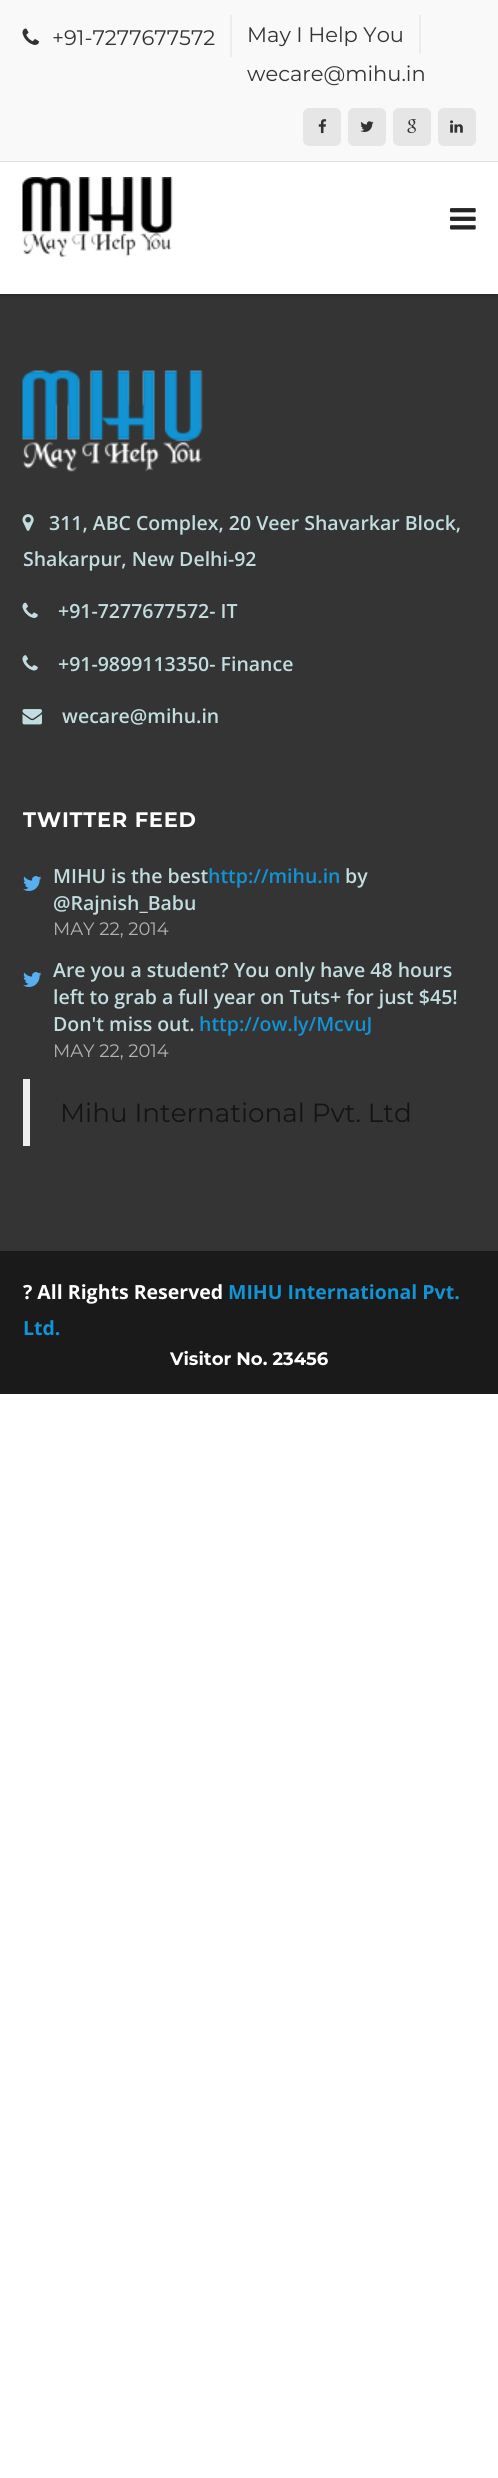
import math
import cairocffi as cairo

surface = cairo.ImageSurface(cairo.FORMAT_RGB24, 498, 2478)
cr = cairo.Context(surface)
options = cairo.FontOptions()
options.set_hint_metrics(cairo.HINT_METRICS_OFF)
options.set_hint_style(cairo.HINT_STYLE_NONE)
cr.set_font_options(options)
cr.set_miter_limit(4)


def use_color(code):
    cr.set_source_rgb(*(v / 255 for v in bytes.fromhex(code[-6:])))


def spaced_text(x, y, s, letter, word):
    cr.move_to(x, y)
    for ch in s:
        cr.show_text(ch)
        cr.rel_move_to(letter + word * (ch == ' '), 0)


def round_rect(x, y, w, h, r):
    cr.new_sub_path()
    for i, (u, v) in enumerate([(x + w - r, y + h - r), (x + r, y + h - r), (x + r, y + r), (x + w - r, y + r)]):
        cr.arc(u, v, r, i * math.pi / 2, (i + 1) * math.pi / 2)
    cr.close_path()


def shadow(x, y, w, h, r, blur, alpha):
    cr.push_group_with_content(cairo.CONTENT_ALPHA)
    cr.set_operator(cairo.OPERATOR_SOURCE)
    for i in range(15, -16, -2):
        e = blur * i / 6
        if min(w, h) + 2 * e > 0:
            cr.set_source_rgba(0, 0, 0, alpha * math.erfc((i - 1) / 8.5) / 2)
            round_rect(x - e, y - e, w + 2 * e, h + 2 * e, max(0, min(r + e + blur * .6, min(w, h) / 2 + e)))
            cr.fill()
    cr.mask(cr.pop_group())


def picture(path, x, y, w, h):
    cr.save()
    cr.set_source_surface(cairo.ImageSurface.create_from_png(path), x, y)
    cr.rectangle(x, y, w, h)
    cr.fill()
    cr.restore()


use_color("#ffffff")
cr.paint()
use_color("#f9f9f9")
cr.rectangle(0, 0, 498, 161)
cr.fill()
use_color("#e6e6e6")
cr.rectangle(0, 161, 498, 1)
cr.fill()
use_color("#ececec")
cr.rectangle(230, 15, 2, 42)
cr.fill()
picture("img1.png", 22, 28, 17, 17)
cr.select_font_face("Montserrat")
cr.set_font_size(21)
use_color("#333333")
cr.move_to(52, 45)
cr.show_text("+91-7277677572")
use_color("#ececec")
cr.rectangle(419, 15, 2, 39)
cr.fill()
use_color("#333333")
cr.move_to(247, 42)
cr.show_text("May I Help You")
cr.move_to(247, 81)
cr.show_text("wecare@mihu.in")
use_color("#e6e6e6")
round_rect(303, 108, 38, 38, 6)
cr.fill()
picture("img2.png", 318, 119, 9, 15)
round_rect(348, 108, 38, 38, 6)
cr.fill()
picture("img3.png", 360, 121, 14, 11)
round_rect(393, 108, 38, 38, 6)
cr.fill()
picture("img4.png", 407, 119, 10, 15)
round_rect(438, 108, 38, 38, 6)
cr.fill()
picture("img5.png", 450, 120, 13, 13)
use_color("#343434")
cr.rectangle(0, 294, 498, 957)
cr.fill()
use_color("#000000")
shadow(0, 164, 498, 132, 0, 2, 0.2)
use_color("#ffffff")
cr.rectangle(0, 162, 498, 132)
cr.fill()
picture("img6.png", 22, 177, 151, 80)
picture("img7.png", 450, 208, 26, 22)
picture("img8.png", 22, 370, 181, 102)
picture("img9.png", 22, 514, 12, 17)
cr.select_font_face("Open Sans SemiBold")
cr.set_font_size(19.5)
use_color("#c2dde0")
cr.move_to(49, 530)
cr.show_text("311, ABC Complex, 20 Veer Shavarkar Block,")
cr.move_to(23, 566)
cr.show_text("Shakarpur, New Delhi-92")
picture("img10.png", 22, 602, 16, 16)
cr.move_to(58, 618)
cr.show_text("+91-7277677572- IT")
picture("img11.png", 22, 655, 16, 16)
cr.move_to(58, 671)
cr.show_text("+91-9899113350- Finance")
picture("img12.png", 22, 709, 20, 16)
cr.move_to(62, 723)
cr.show_text("wecare@mihu.in")
cr.select_font_face("Montserrat", cairo.FONT_SLANT_NORMAL, cairo.FONT_WEIGHT_BOLD)
cr.set_font_size(21)
use_color("#ffffff")
spaced_text(23, 827, "TWITTER FEED", 0.75, 0)
picture("img13.png", 23, 876, 19, 15)
cr.select_font_face("Open Sans SemiBold")
cr.set_font_size(19.5)
use_color("#c2dde0")
cr.move_to(53, 883)
cr.show_text("MIHU is the best")
use_color("#1193d4")
cr.move_to(208, 883)
cr.show_text("http://mihu.in")
use_color("#c2dde0")
cr.move_to(345, 883)
cr.show_text("by")
cr.move_to(53, 910)
cr.show_text("@Rajnish_Babu")
cr.select_font_face("Montserrat")
cr.set_font_size(18)
use_color("#b2b2b2")
cr.move_to(53, 935)
cr.show_text("MAY 22, 2014")
picture("img13.png", 23, 972, 19, 15)
cr.select_font_face("Open Sans SemiBold")
cr.set_font_size(19.5)
use_color("#c2dde0")
cr.move_to(53, 977)
cr.show_text("Are you a student? You only have 48 hours")
cr.move_to(53, 1004)
cr.show_text("left to grab a full year on Tuts+ for just $45!")
cr.move_to(53, 1031)
cr.show_text("Don't miss out.")
use_color("#1193d4")
cr.move_to(199, 1031)
cr.show_text("http://ow.ly/McvuJ")
cr.select_font_face("Montserrat")
cr.set_font_size(18)
use_color("#b2b2b2")
cr.move_to(53, 1057)
cr.show_text("MAY 22, 2014")
use_color("#eeeeee")
cr.rectangle(23, 1079, 7, 67)
cr.fill()
cr.set_font_size(26.25)
use_color("#141414")
cr.move_to(60, 1122)
cr.show_text("Mihu International Pvt. Ltd")
use_color("#1a1a1a")
cr.rectangle(0, 1251, 498, 143)
cr.fill()
cr.select_font_face("Open Sans", cairo.FONT_SLANT_NORMAL, cairo.FONT_WEIGHT_BOLD)
cr.set_font_size(19.5)
use_color("#ffffff")
cr.move_to(23, 1299)
cr.show_text("? All Rights Reserved")
use_color("#1193d4")
cr.move_to(228, 1299)
cr.show_text("MIHU International Pvt.")
cr.move_to(23, 1335)
cr.show_text("Ltd.")
cr.select_font_face("Montserrat", cairo.FONT_SLANT_NORMAL, cairo.FONT_WEIGHT_BOLD)
cr.set_font_size(18)
use_color("#ffffff")
cr.move_to(170, 1365)
cr.show_text("Visitor No. 23456")
surface.write_to_png("result.png")
